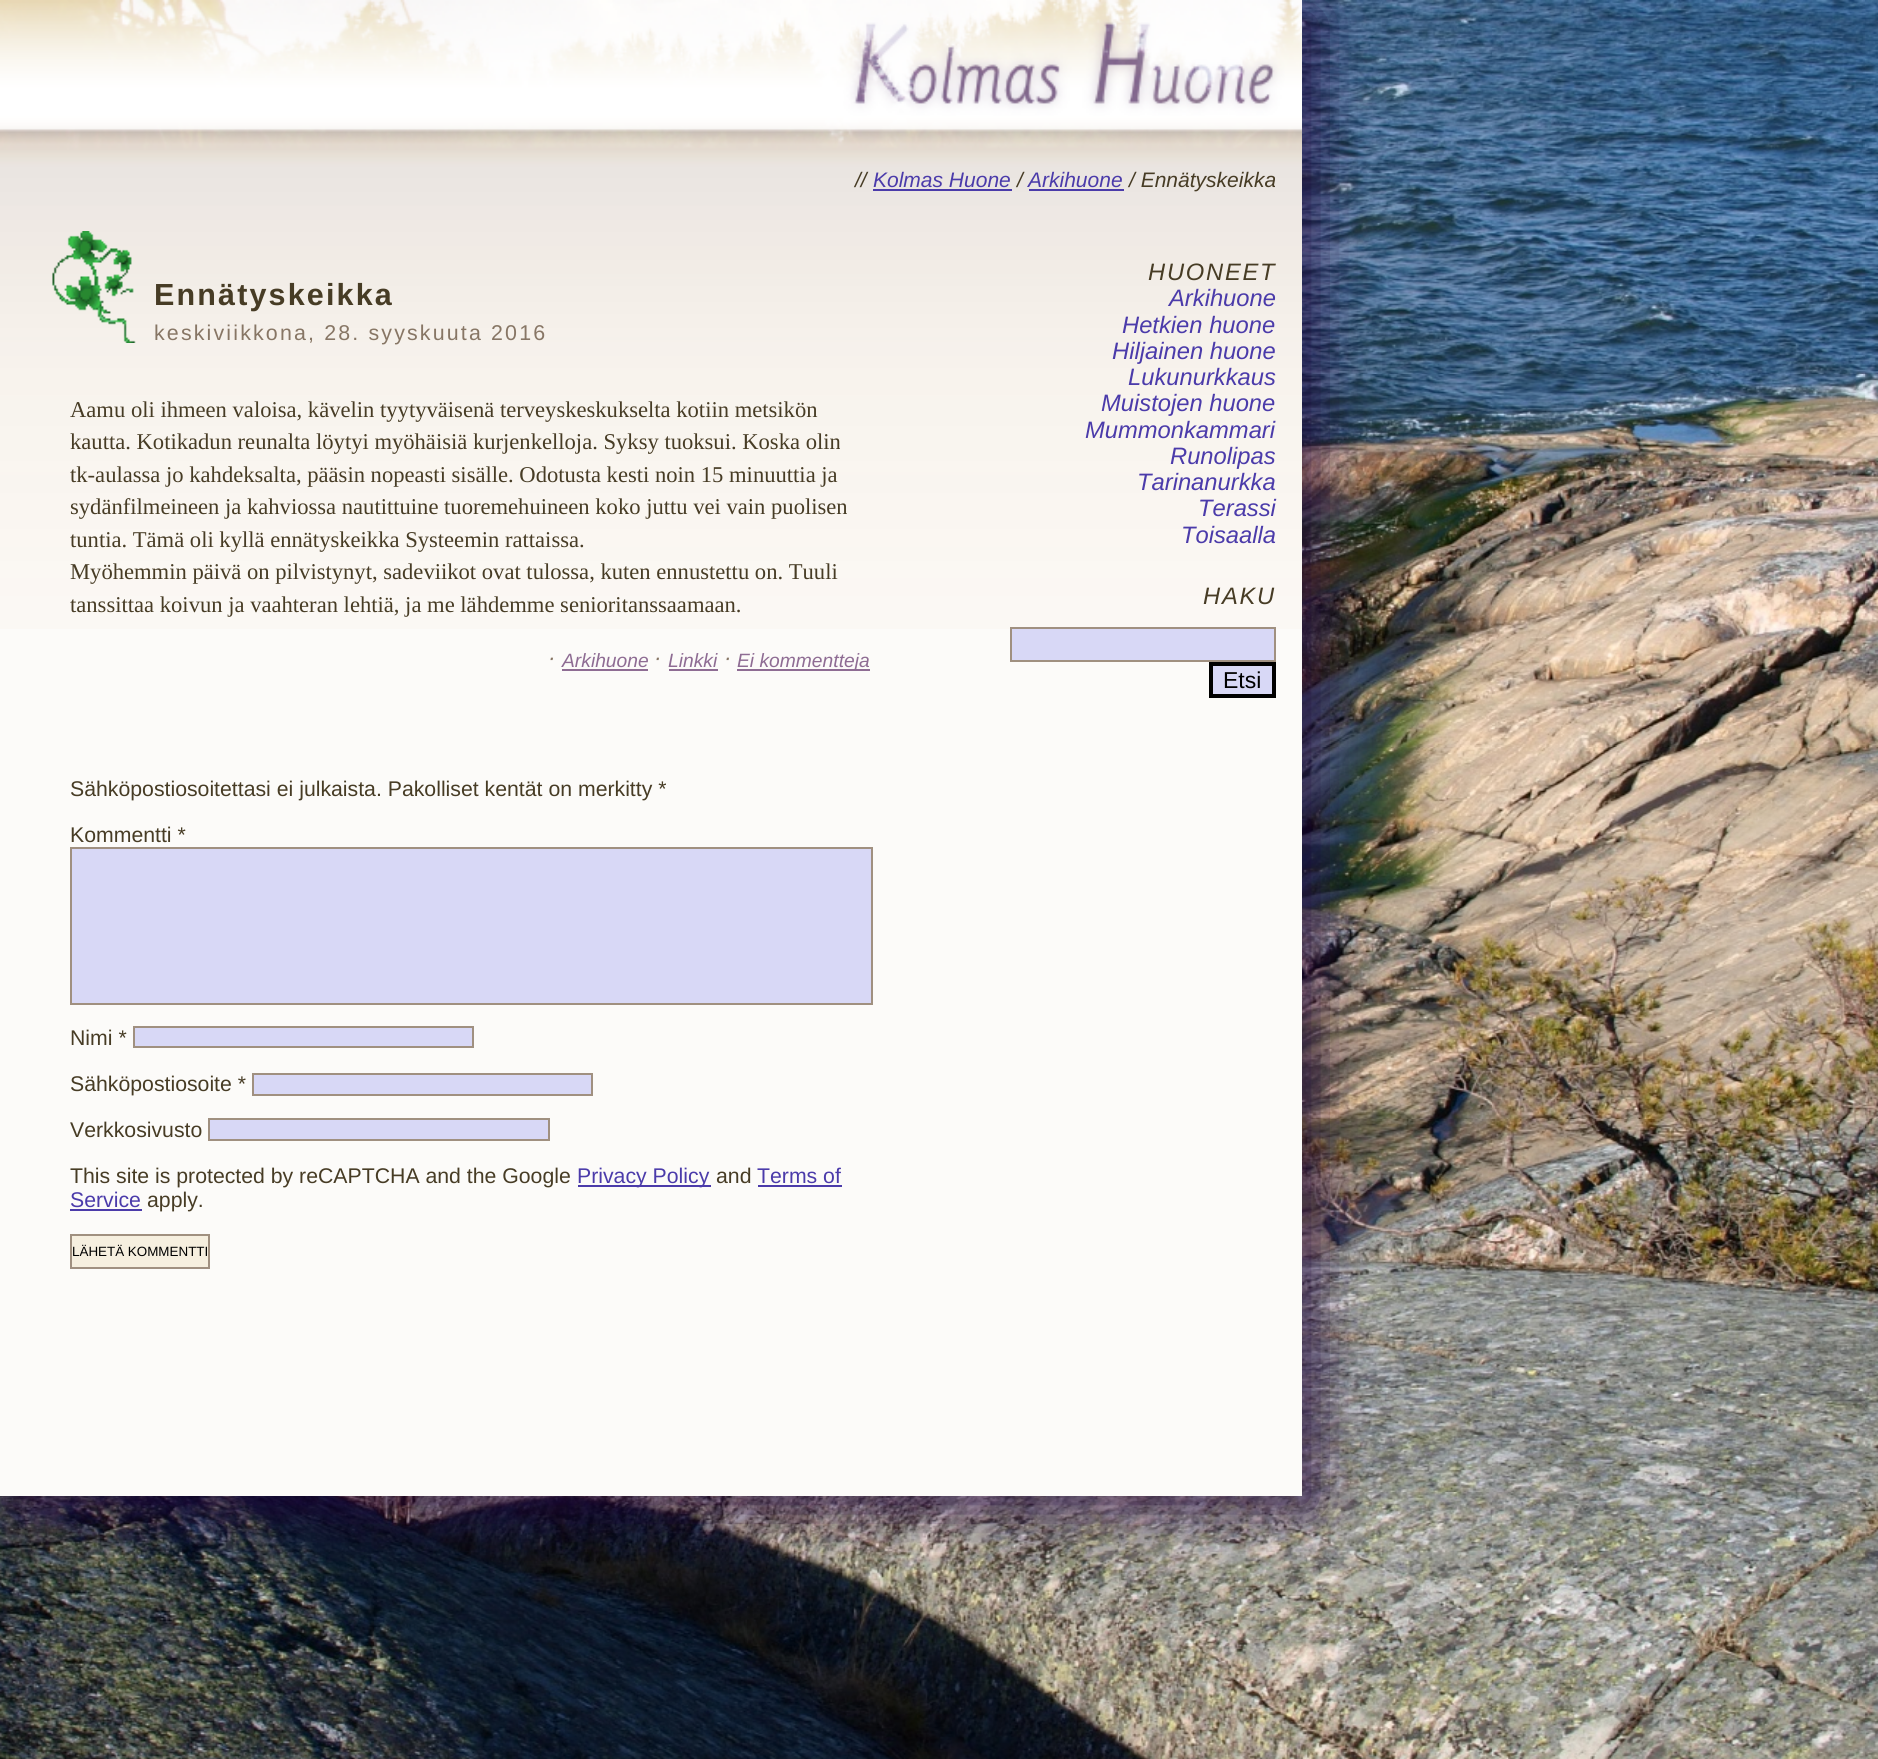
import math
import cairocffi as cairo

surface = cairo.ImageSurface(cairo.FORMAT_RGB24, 1878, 1759)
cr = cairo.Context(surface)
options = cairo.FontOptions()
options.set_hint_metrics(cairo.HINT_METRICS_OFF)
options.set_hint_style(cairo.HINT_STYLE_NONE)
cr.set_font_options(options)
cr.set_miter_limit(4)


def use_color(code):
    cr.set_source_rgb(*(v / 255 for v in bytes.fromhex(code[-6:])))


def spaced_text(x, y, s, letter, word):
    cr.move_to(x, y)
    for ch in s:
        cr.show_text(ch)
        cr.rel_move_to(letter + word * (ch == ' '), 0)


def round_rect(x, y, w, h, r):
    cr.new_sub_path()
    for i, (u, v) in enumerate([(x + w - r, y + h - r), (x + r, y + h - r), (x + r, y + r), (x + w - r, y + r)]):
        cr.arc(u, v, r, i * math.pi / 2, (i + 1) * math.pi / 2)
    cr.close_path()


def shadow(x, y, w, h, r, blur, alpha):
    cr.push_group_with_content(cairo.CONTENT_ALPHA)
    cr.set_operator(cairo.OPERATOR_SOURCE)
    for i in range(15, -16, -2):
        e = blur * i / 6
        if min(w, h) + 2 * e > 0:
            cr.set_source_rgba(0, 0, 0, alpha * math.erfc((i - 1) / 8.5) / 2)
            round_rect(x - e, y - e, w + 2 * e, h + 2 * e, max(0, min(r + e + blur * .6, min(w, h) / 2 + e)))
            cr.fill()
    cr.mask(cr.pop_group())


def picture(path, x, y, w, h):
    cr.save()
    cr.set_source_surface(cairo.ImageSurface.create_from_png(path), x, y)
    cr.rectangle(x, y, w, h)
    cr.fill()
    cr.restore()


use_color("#ffffff")
cr.paint()
picture("img1.png", 0, 0, 1878, 1759)
use_color("#1e003c")
shadow(14, 14, 1302, 1496, 0, 28, 0.8)
use_color("#fcfbf9")
cr.rectangle(0, 629, 1302, 867)
cr.fill()
picture("img2.png", 0, 0, 1302, 629)
cr.select_font_face("Liberation Sans", cairo.FONT_SLANT_ITALIC)
cr.set_font_size(21)
use_color("#473c25")
cr.move_to(855, 187)
cr.show_text("//")
use_color("#4b3baa")
cr.move_to(873, 187)
cr.show_text("Kolmas Huone")
cr.rectangle(873, 189, 139, 2)
cr.fill()
use_color("#473c25")
cr.move_to(1017, 187)
cr.show_text("/")
use_color("#4b3baa")
cr.move_to(1028, 187)
cr.show_text("Arkihuone")
cr.rectangle(1029, 189, 95, 2)
cr.fill()
use_color("#473c25")
cr.move_to(1129, 187)
cr.show_text("/ Ennätyskeikka")
picture("img3.png", 52, 231, 84, 112)
cr.select_font_face("Liberation Sans", cairo.FONT_SLANT_NORMAL, cairo.FONT_WEIGHT_BOLD)
cr.set_font_size(30.5)
spaced_text(154, 305, "Ennätyskeikka", 2.15, 0)
cr.select_font_face("Liberation Sans")
cr.set_font_size(21.4)
use_color("#877665")
spaced_text(154, 340, "keskiviikkona, 28. syyskuuta 2016", 2.15, 0)
cr.select_font_face("Liberation Serif")
cr.set_font_size(22.6)
use_color("#473c25")
cr.move_to(70, 417)
cr.show_text("Aamu oli ihmeen valoisa, kävelin tyytyväisenä terveyskeskukselta kotiin metsikön")
cr.move_to(70, 449)
cr.show_text("kautta. Kotikadun reunalta löytyi myöhäisiä kurjenkelloja. Syksy tuoksui. Koska olin")
cr.move_to(70, 482)
cr.show_text("tk-aulassa jo kahdeksalta, pääsin nopeasti sisälle. Odotusta kesti noin 15 minuuttia ja")
cr.move_to(70, 514)
cr.show_text("sydänfilmeineen ja kahviossa nautittuine tuoremehuineen koko juttu vei vain puolisen")
cr.move_to(70, 547)
cr.show_text("tuntia. Tämä oli kyllä ennätyskeikka Systeemin rattaissa.")
cr.move_to(70, 579)
cr.show_text("Myöhemmin päivä on pilvistynyt, sadeviikot ovat tulossa, kuten ennustettu on. Tuuli")
cr.move_to(70, 612)
cr.show_text("tanssittaa koivun ja vaahteran lehtiä, ja me lähdemme senioritanssaamaan.")
cr.select_font_face("Liberation Sans", cairo.FONT_SLANT_ITALIC)
use_color("#877665")
cr.move_to(548, 665)
cr.show_text("·")
cr.set_font_size(19.25)
use_color("#8e6c93")
cr.move_to(562, 667)
cr.show_text("Arkihuone")
cr.rectangle(562, 669, 86, 2)
cr.fill()
cr.set_font_size(22.6)
use_color("#877665")
cr.move_to(654, 665)
cr.show_text("·")
cr.set_font_size(19.25)
use_color("#8e6c93")
cr.move_to(668, 667)
cr.show_text("Linkki")
cr.rectangle(669, 669, 49, 2)
cr.fill()
cr.set_font_size(22.6)
use_color("#877665")
cr.move_to(724, 665)
cr.show_text("·")
use_color("#8e6c93")
cr.rectangle(737, 669, 133, 2)
cr.fill()
cr.set_font_size(19.25)
cr.move_to(737, 667)
cr.show_text("Ei kommentteja")
cr.select_font_face("Liberation Sans")
cr.set_font_size(21.25)
use_color("#473c25")
cr.move_to(70, 796)
cr.show_text("Sähköpostiosoitettasi ei julkaista. Pakolliset kentät on merkitty *")
cr.move_to(70, 842)
cr.show_text("Kommentti *")
use_color("#d8d8f6")
cr.rectangle(71, 848, 801, 156)
cr.fill_preserve()
use_color("#a09080")
cr.stroke()
use_color("#473c25")
cr.move_to(70, 1045)
cr.show_text("Nimi *")
use_color("#d8d8f6")
cr.rectangle(134, 1027, 339, 20)
cr.fill_preserve()
use_color("#a09080")
cr.stroke()
use_color("#473c25")
cr.move_to(70, 1091)
cr.show_text("Sähköpostiosoite *")
use_color("#d8d8f6")
cr.rectangle(253, 1074, 339, 21)
cr.fill_preserve()
use_color("#a09080")
cr.stroke()
use_color("#473c25")
cr.move_to(70, 1137)
cr.show_text("Verkkosivusto")
use_color("#d8d8f6")
cr.rectangle(209, 1119, 340, 21)
cr.fill_preserve()
use_color("#a09080")
cr.stroke()
use_color("#473c25")
cr.move_to(70, 1183)
cr.show_text("This site is protected by reCAPTCHA and the Google")
use_color("#4b3baa")
cr.rectangle(578, 1185, 133, 2)
cr.fill()
cr.move_to(577, 1183)
cr.show_text("Privacy Policy")
use_color("#473c25")
cr.move_to(716, 1183)
cr.show_text("and")
use_color("#4b3baa")
cr.move_to(757, 1183)
cr.show_text("Terms of")
cr.rectangle(758, 1185, 84, 2)
cr.fill()
cr.move_to(70, 1207)
cr.show_text("Service")
cr.rectangle(70, 1209, 72, 2)
cr.fill()
use_color("#473c25")
cr.move_to(147, 1207)
cr.show_text("apply.")
use_color("#f6efdf")
cr.rectangle(71, 1235, 138, 33)
cr.fill_preserve()
use_color("#a09080")
cr.stroke()
cr.set_font_size(13.4)
use_color("#000000")
cr.move_to(72, 1256)
cr.show_text("LÄHETÄ KOMMENTTI")
cr.select_font_face("Liberation Sans", cairo.FONT_SLANT_ITALIC)
cr.set_font_size(23.75)
use_color("#473c25")
spaced_text(1148, 280, "HUONEET", 1.75, 0)
use_color("#4b3baa")
cr.move_to(1169, 306)
cr.show_text("Arkihuone")
cr.move_to(1122, 333)
cr.show_text("Hetkien huone")
cr.move_to(1112, 359)
cr.show_text("Hiljainen huone")
cr.move_to(1128, 385)
cr.show_text("Lukunurkkaus")
cr.move_to(1101, 411)
cr.show_text("Muistojen huone")
cr.move_to(1085, 438)
cr.show_text("Mummonkammari")
cr.move_to(1170, 464)
cr.show_text("Runolipas")
cr.move_to(1137, 490)
cr.show_text("Tarinanurkka")
cr.move_to(1198, 516)
cr.show_text("Terassi")
cr.move_to(1181, 543)
cr.show_text("Toisaalla")
use_color("#473c25")
spaced_text(1203, 604, "HAKU", 1.75, 0)
use_color("#d8d8f6")
cr.rectangle(1011, 628, 264, 33)
cr.fill_preserve()
use_color("#a09080")
cr.stroke()
use_color("#d8d8f6")
cr.rectangle(1211, 664, 63, 32)
cr.fill_preserve()
use_color("#000000")
cr.set_line_width(4)
cr.stroke()
cr.select_font_face("Liberation Sans")
cr.set_font_size(23)
cr.move_to(1223, 688)
cr.show_text("Etsi")
surface.write_to_png("result.png")
